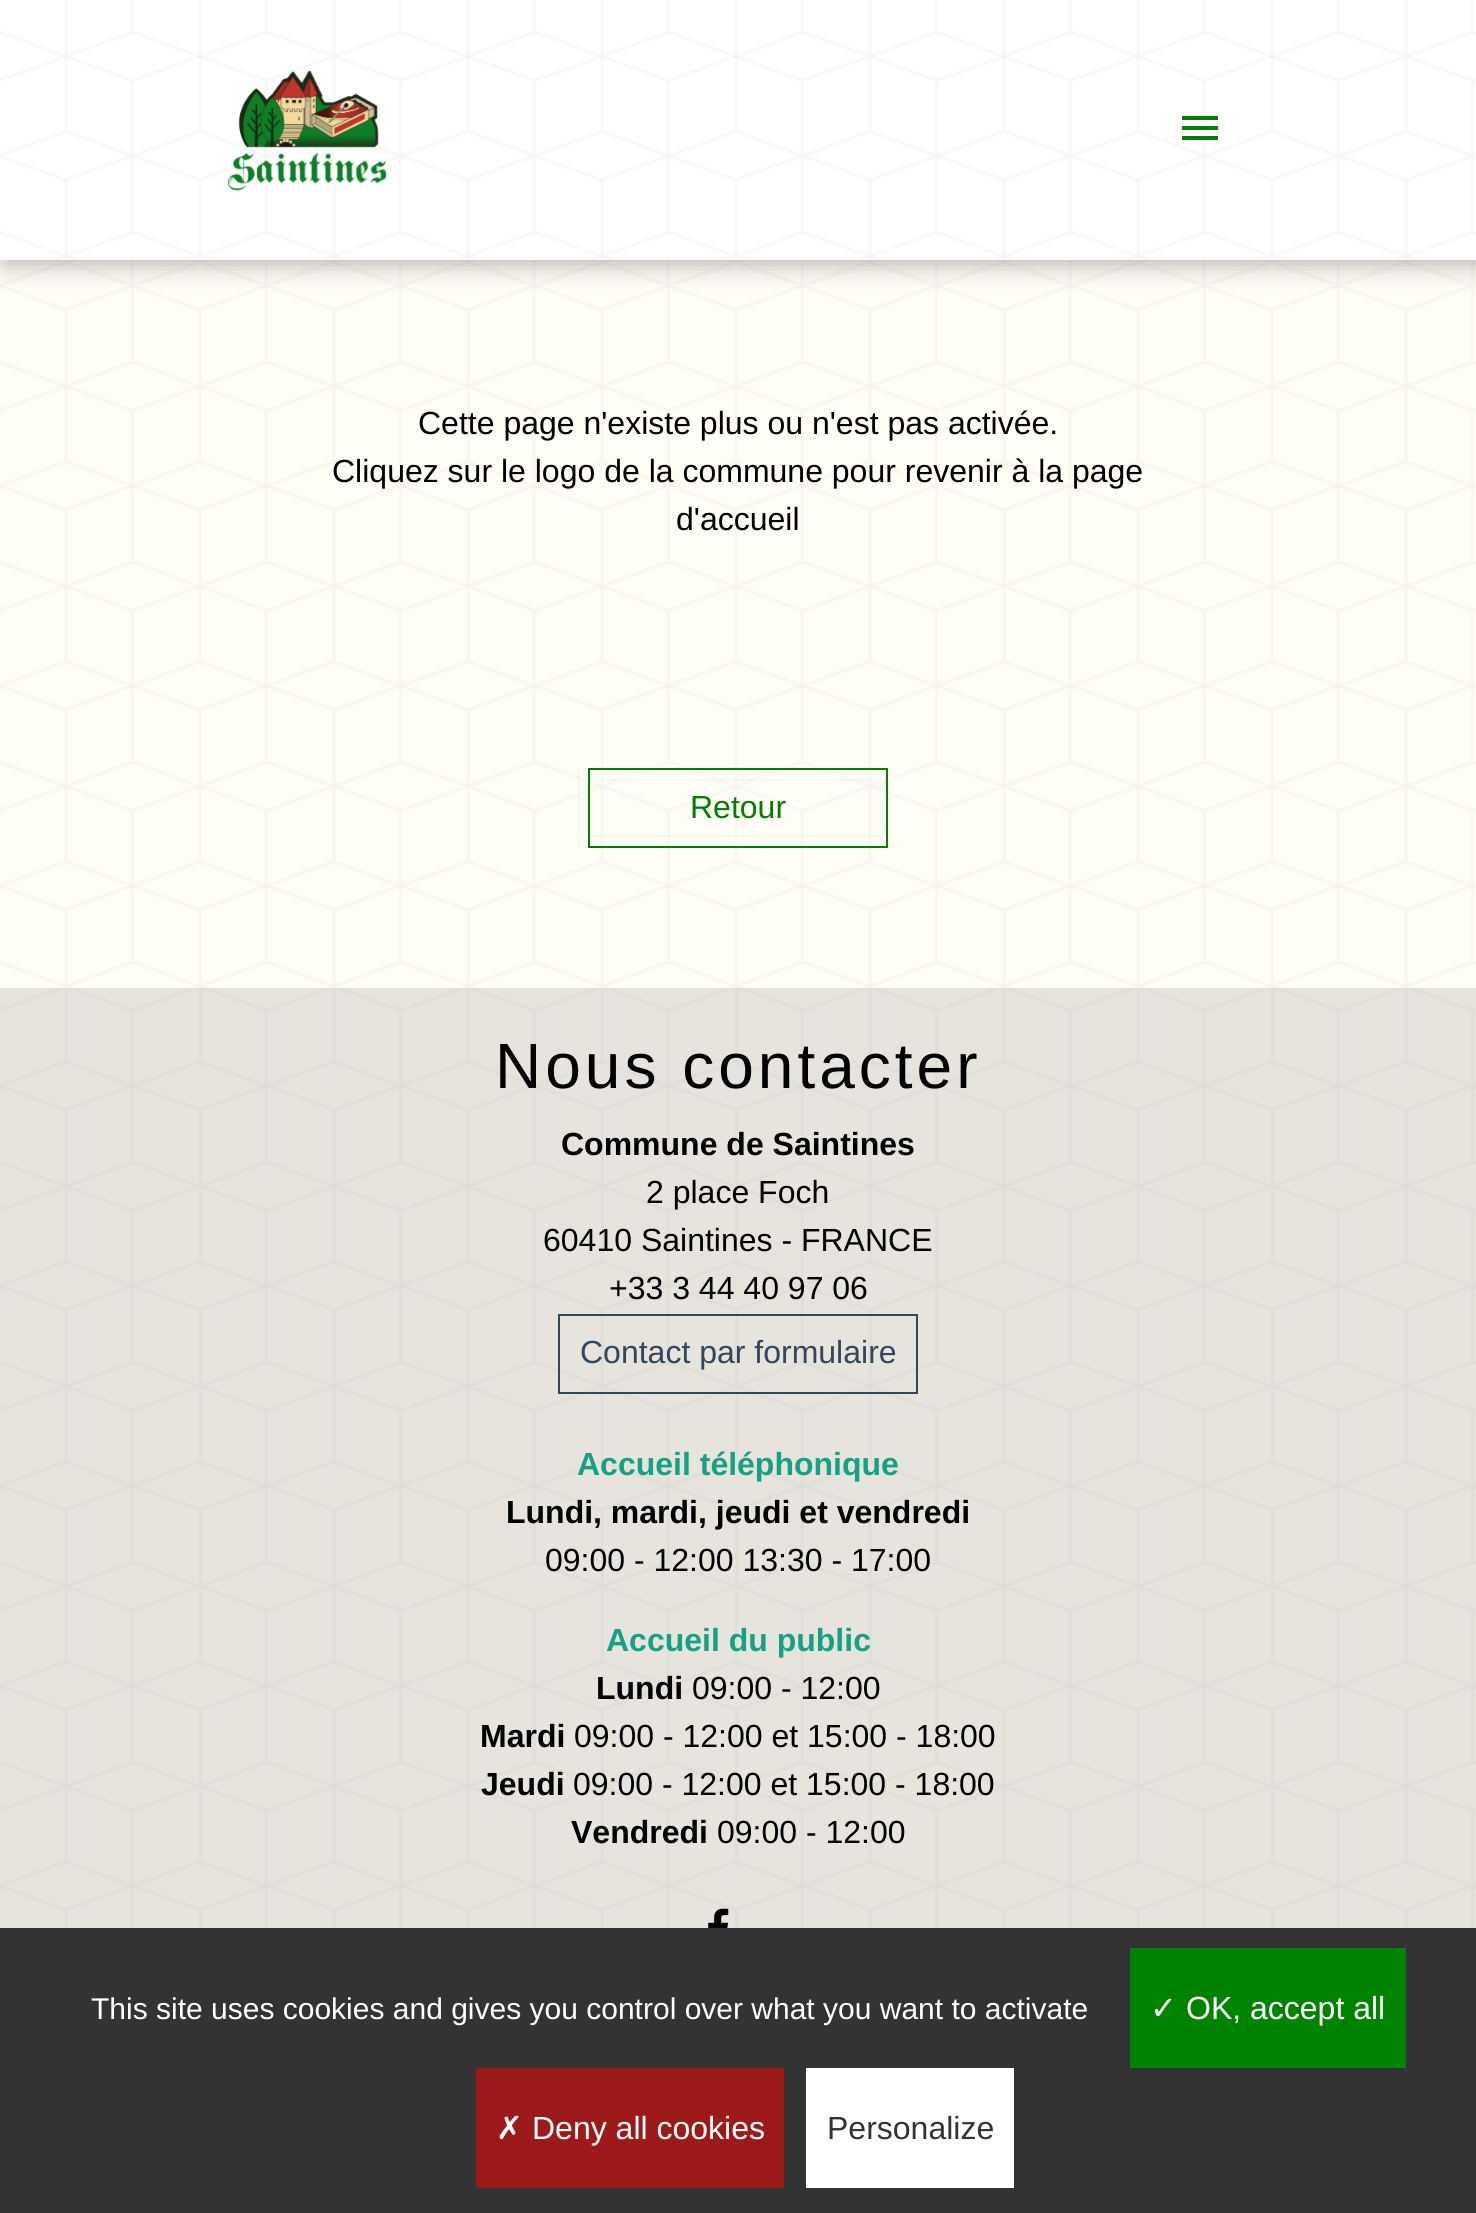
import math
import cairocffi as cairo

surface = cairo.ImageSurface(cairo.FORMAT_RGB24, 1476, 2213)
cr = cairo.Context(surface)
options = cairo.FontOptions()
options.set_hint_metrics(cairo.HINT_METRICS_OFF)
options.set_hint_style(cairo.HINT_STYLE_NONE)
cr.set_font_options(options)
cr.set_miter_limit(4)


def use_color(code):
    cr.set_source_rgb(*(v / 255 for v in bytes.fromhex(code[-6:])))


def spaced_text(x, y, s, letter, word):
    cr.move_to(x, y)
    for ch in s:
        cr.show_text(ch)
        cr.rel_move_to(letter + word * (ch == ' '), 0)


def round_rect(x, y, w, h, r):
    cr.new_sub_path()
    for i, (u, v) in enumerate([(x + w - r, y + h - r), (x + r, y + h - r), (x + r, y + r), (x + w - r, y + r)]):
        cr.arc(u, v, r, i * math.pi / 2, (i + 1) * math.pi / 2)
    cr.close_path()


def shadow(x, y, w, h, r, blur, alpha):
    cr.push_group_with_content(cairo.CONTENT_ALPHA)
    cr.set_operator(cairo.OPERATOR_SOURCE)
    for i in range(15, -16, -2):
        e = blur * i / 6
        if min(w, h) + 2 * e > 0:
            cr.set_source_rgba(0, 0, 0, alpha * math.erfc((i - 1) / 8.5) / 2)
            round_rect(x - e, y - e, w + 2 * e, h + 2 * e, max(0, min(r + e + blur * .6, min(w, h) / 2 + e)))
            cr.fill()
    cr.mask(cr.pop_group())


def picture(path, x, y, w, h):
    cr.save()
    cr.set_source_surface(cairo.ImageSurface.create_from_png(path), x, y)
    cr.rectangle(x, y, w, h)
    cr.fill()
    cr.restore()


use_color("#fffdf4")
cr.paint()
picture("img1.png", 0, 260, 1476, 1668)
use_color("#000000")
shadow(4, 4, 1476, 260, 0, 13, 0.3)
use_color("#ffffff")
cr.rectangle(0, 0, 1476, 260)
cr.fill()
picture("img2.png", 0, 0, 1476, 260)
picture("img3.png", 228, 70, 159, 121)
use_color("#047c09")
cr.new_path()
cr.move_to(1182, 116)
cr.line_to(1218, 116)
cr.line_to(1218, 120)
cr.line_to(1182, 120)
cr.close_path()
cr.move_to(1182, 130)
cr.line_to(1182, 126)
cr.line_to(1218, 126)
cr.line_to(1218, 130)
cr.close_path()
cr.move_to(1182, 140)
cr.line_to(1182, 136)
cr.line_to(1218, 136)
cr.line_to(1218, 140)
cr.close_path()
cr.fill()
cr.select_font_face("Liberation Sans")
cr.set_font_size(32)
use_color("#000000")
cr.move_to(418, 434)
cr.show_text("Cette page n'existe plus ou n'est pas activée.")
cr.move_to(332, 482)
cr.show_text("Cliquez sur le logo de la commune pour revenir à la page")
cr.move_to(676, 530)
cr.show_text("d'accueil")
cr.rectangle(589, 769, 298, 78)
use_color("#047c09")
cr.stroke()
cr.move_to(690, 818)
cr.show_text("Retour")
cr.set_source_rgba(0, 0, 0, 0.1)
cr.rectangle(0, 988, 1476, 940)
cr.fill()
cr.set_font_size(64)
use_color("#000000")
spaced_text(495, 1088, "Nous contacter", 4, 0)
cr.select_font_face("Liberation Sans", cairo.FONT_SLANT_NORMAL, cairo.FONT_WEIGHT_BOLD)
cr.set_font_size(32)
cr.move_to(561, 1155)
cr.show_text("Commune de Saintines")
cr.select_font_face("Liberation Sans")
cr.move_to(646, 1203)
cr.show_text("2 place Foch")
cr.move_to(543, 1251)
cr.show_text("60410 Saintines - FRANCE")
cr.move_to(609, 1299)
cr.show_text("+33 3 44 40 97 06")
cr.rectangle(559, 1315, 358, 78)
use_color("#34455e")
cr.stroke()
cr.move_to(580, 1363)
cr.show_text("Contact par formulaire")
cr.select_font_face("Liberation Sans", cairo.FONT_SLANT_NORMAL, cairo.FONT_WEIGHT_BOLD)
use_color("#16a085")
cr.move_to(577, 1475)
cr.show_text("Accueil téléphonique")
use_color("#000000")
cr.move_to(506, 1523)
cr.show_text("Lundi, mardi, jeudi et vendredi")
cr.select_font_face("Liberation Sans")
cr.move_to(545, 1571)
cr.show_text("09:00 - 12:00 13:30 - 17:00")
cr.select_font_face("Liberation Sans", cairo.FONT_SLANT_NORMAL, cairo.FONT_WEIGHT_BOLD)
use_color("#16a085")
cr.move_to(606, 1651)
cr.show_text("Accueil du public")
use_color("#000000")
cr.move_to(596, 1699)
cr.show_text("Lundi")
cr.select_font_face("Liberation Sans")
cr.move_to(692, 1699)
cr.show_text("09:00 - 12:00")
cr.select_font_face("Liberation Sans", cairo.FONT_SLANT_NORMAL, cairo.FONT_WEIGHT_BOLD)
cr.move_to(480, 1747)
cr.show_text("Mardi")
cr.select_font_face("Liberation Sans")
cr.move_to(574, 1747)
cr.show_text("09:00 - 12:00 et 15:00 - 18:00")
cr.select_font_face("Liberation Sans", cairo.FONT_SLANT_NORMAL, cairo.FONT_WEIGHT_BOLD)
cr.move_to(481, 1795)
cr.show_text("Jeudi")
cr.select_font_face("Liberation Sans")
cr.move_to(573, 1795)
cr.show_text("09:00 - 12:00 et 15:00 - 18:00")
cr.select_font_face("Liberation Sans", cairo.FONT_SLANT_NORMAL, cairo.FONT_WEIGHT_BOLD)
cr.move_to(571, 1843)
cr.show_text("Vendredi")
cr.select_font_face("Liberation Sans")
cr.move_to(717, 1843)
cr.show_text("09:00 - 12:00")
picture("img4.png", 708, 1908, 21, 20)
use_color("#333333")
cr.rectangle(0, 1928, 1476, 285)
cr.fill()
cr.set_font_size(30)
use_color("#ffffff")
cr.move_to(91, 2019)
cr.show_text("This site uses cookies and gives you control over what you want to activate")
use_color("#008300")
cr.rectangle(1130, 1948, 276, 120)
cr.fill()
cr.select_font_face("DejaVu Sans")
cr.set_font_size(32)
use_color("#ffffff")
cr.move_to(1150, 2019)
cr.show_text("✓")
cr.select_font_face("Liberation Sans")
cr.move_to(1186, 2019)
cr.show_text("OK, accept all")
use_color("#9c1a1a")
cr.rectangle(476, 2068, 308, 120)
cr.fill()
cr.select_font_face("DejaVu Sans")
use_color("#ffffff")
cr.move_to(496, 2139)
cr.show_text("✗")
cr.select_font_face("Liberation Sans")
cr.move_to(532, 2139)
cr.show_text("Deny all cookies")
cr.rectangle(806, 2068, 208, 120)
cr.fill()
use_color("#333333")
cr.move_to(827, 2139)
cr.show_text("Personalize")
surface.write_to_png("result.png")
